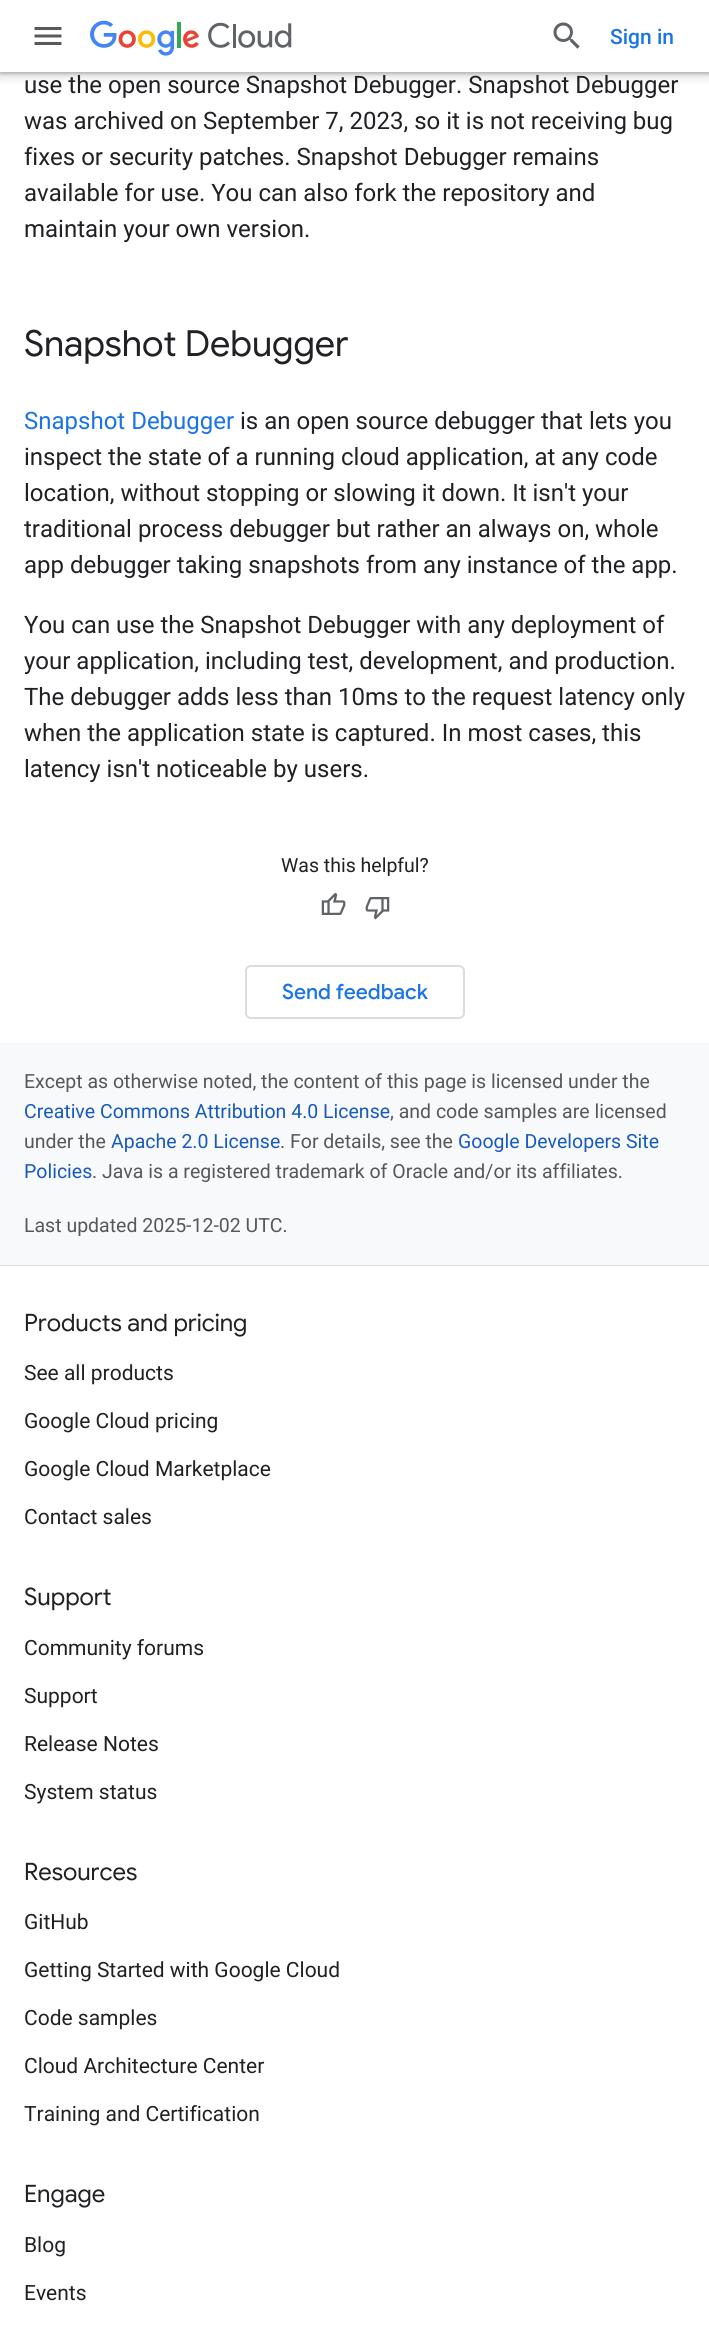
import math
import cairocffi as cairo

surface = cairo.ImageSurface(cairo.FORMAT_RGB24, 709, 2333)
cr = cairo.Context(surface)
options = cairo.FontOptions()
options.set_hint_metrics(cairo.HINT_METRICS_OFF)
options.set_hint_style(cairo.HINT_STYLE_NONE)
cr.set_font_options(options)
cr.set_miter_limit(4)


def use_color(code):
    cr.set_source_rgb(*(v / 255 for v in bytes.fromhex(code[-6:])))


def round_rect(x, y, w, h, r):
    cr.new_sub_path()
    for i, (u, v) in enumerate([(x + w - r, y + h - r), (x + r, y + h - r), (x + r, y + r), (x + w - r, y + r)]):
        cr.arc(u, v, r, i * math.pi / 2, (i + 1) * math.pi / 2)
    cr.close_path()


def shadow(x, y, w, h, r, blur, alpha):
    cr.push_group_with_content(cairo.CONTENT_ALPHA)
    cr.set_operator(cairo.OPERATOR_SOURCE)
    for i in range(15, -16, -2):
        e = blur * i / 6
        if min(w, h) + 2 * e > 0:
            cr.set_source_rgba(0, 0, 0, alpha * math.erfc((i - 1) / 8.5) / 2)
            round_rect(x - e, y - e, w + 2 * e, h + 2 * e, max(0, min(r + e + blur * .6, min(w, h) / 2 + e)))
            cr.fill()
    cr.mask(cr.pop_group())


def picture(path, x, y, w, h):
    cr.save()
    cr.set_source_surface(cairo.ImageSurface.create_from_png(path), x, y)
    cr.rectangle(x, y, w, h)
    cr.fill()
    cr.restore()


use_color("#f8f9fa")
cr.paint()
use_color("#ffffff")
cr.rectangle(0, 72, 709, 971)
cr.fill()
use_color("#3c4043")
shadow(-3, -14, 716, 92, 0, 4.5, 0.15)
shadow(0, -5, 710, 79, 0, 1.5, 0.3)
use_color("#ffffff")
cr.rectangle(0, 0, 709, 72)
cr.fill()
picture("img1.png", 34, 27, 28, 18)
picture("img2.png", 90, 20, 202, 36)
picture("img3.png", 553, 22, 27, 27)
cr.select_font_face("Roboto Medium")
cr.set_font_size(21)
use_color("#1a73e8")
cr.move_to(610, 44)
cr.show_text("Sign in")
cr.select_font_face("Roboto")
cr.set_font_size(24)
use_color("#202124")
cr.move_to(24, 93)
cr.show_text("use the open source Snapshot Debugger. Snapshot Debugger")
cr.move_to(24, 129)
cr.show_text("was archived on September 7, 2023, so it is not receiving bug")
cr.move_to(24, 165)
cr.show_text("fixes or security patches. Snapshot Debugger remains")
cr.move_to(24, 201)
cr.show_text("available for use. You can also fork the repository and")
cr.move_to(24, 237)
cr.show_text("maintain your own version.")
cr.select_font_face("Google Sans")
cr.set_font_size(36)
cr.move_to(24, 356)
cr.show_text("Snapshot Debugger")
cr.select_font_face("Roboto")
cr.set_font_size(24)
use_color("#1a73e8")
cr.move_to(24, 429)
cr.show_text("Snapshot Debugger")
use_color("#202124")
cr.move_to(240, 429)
cr.show_text("is an open source debugger that lets you")
cr.move_to(24, 465)
cr.show_text("inspect the state of a running cloud application, at any code")
cr.move_to(24, 501)
cr.show_text("location, without stopping or slowing it down. It isn't your")
cr.move_to(24, 537)
cr.show_text("traditional process debugger but rather an always on, whole")
cr.move_to(24, 573)
cr.show_text("app debugger taking snapshots from any instance of the app.")
cr.move_to(24, 633)
cr.show_text("You can use the Snapshot Debugger with any deployment of")
cr.move_to(24, 669)
cr.show_text("your application, including test, development, and production.")
cr.move_to(24, 705)
cr.show_text("The debugger adds less than 10ms to the request latency only")
cr.move_to(24, 741)
cr.show_text("when the application state is captured. In most cases, this")
cr.move_to(24, 777)
cr.show_text("latency isn't noticeable by users.")
cr.set_font_size(19.5)
cr.move_to(281, 872)
cr.show_text("Was this helpful?")
picture("img4.png", 321, 893, 25, 22)
picture("img5.png", 365, 897, 25, 23)
round_rect(246, 966, 218, 52, 5)
use_color("#dadce0")
cr.stroke()
cr.select_font_face("Google Sans Medium")
cr.set_font_size(21)
use_color("#1a73e8")
cr.move_to(282, 999)
cr.show_text("Send feedback")
cr.select_font_face("Roboto")
cr.set_font_size(19.5)
use_color("#575758")
cr.move_to(24, 1088)
cr.show_text("Except as otherwise noted, the content of this page is licensed under the")
use_color("#185abc")
cr.move_to(24, 1118)
cr.show_text("Creative Commons Attribution 4.0 License")
use_color("#575758")
cr.move_to(390, 1118)
cr.show_text(", and code samples are licensed")
cr.move_to(24, 1148)
cr.show_text("under the")
use_color("#185abc")
cr.move_to(111, 1148)
cr.show_text("Apache 2.0 License")
use_color("#575758")
cr.move_to(280, 1148)
cr.show_text(". For details, see the")
use_color("#185abc")
cr.move_to(458, 1148)
cr.show_text("Google Developers Site")
cr.move_to(24, 1178)
cr.show_text("Policies")
use_color("#575758")
cr.move_to(92, 1178)
cr.show_text(". Java is a registered trademark of Oracle and/or its affiliates.")
cr.move_to(24, 1232)
cr.show_text("Last updated 2025-12-02 UTC.")
use_color("#dadce0")
cr.rectangle(0, 1265, 709, 1)
cr.fill()
use_color("#ffffff")
cr.rectangle(0, 1266, 709, 1067)
cr.fill()
cr.select_font_face("Google Sans")
cr.set_font_size(24)
use_color("#202124")
cr.move_to(24, 1331)
cr.show_text("Products and pricing")
cr.select_font_face("Roboto")
cr.set_font_size(21)
cr.move_to(24, 1380)
cr.show_text("See all products")
cr.move_to(24, 1428)
cr.show_text("Google Cloud pricing")
cr.move_to(24, 1476)
cr.show_text("Google Cloud Marketplace")
cr.move_to(24, 1524)
cr.show_text("Contact sales")
cr.select_font_face("Google Sans")
cr.set_font_size(24)
cr.move_to(24, 1605)
cr.show_text("Support")
cr.select_font_face("Roboto")
cr.set_font_size(21)
cr.move_to(24, 1655)
cr.show_text("Community forums")
cr.move_to(24, 1703)
cr.show_text("Support")
cr.move_to(24, 1751)
cr.show_text("Release Notes")
cr.move_to(24, 1799)
cr.show_text("System status")
cr.select_font_face("Google Sans")
cr.set_font_size(24)
cr.move_to(24, 1880)
cr.show_text("Resources")
cr.select_font_face("Roboto")
cr.set_font_size(21)
cr.move_to(24, 1929)
cr.show_text("GitHub")
cr.move_to(24, 1977)
cr.show_text("Getting Started with Google Cloud")
cr.move_to(24, 2025)
cr.show_text("Code samples")
cr.move_to(24, 2073)
cr.show_text("Cloud Architecture Center")
cr.move_to(24, 2121)
cr.show_text("Training and Certification")
cr.select_font_face("Google Sans")
cr.set_font_size(24)
cr.move_to(24, 2202)
cr.show_text("Engage")
cr.select_font_face("Roboto")
cr.set_font_size(21)
cr.move_to(24, 2252)
cr.show_text("Blog")
cr.move_to(24, 2300)
cr.show_text("Events")
surface.write_to_png("result.png")
